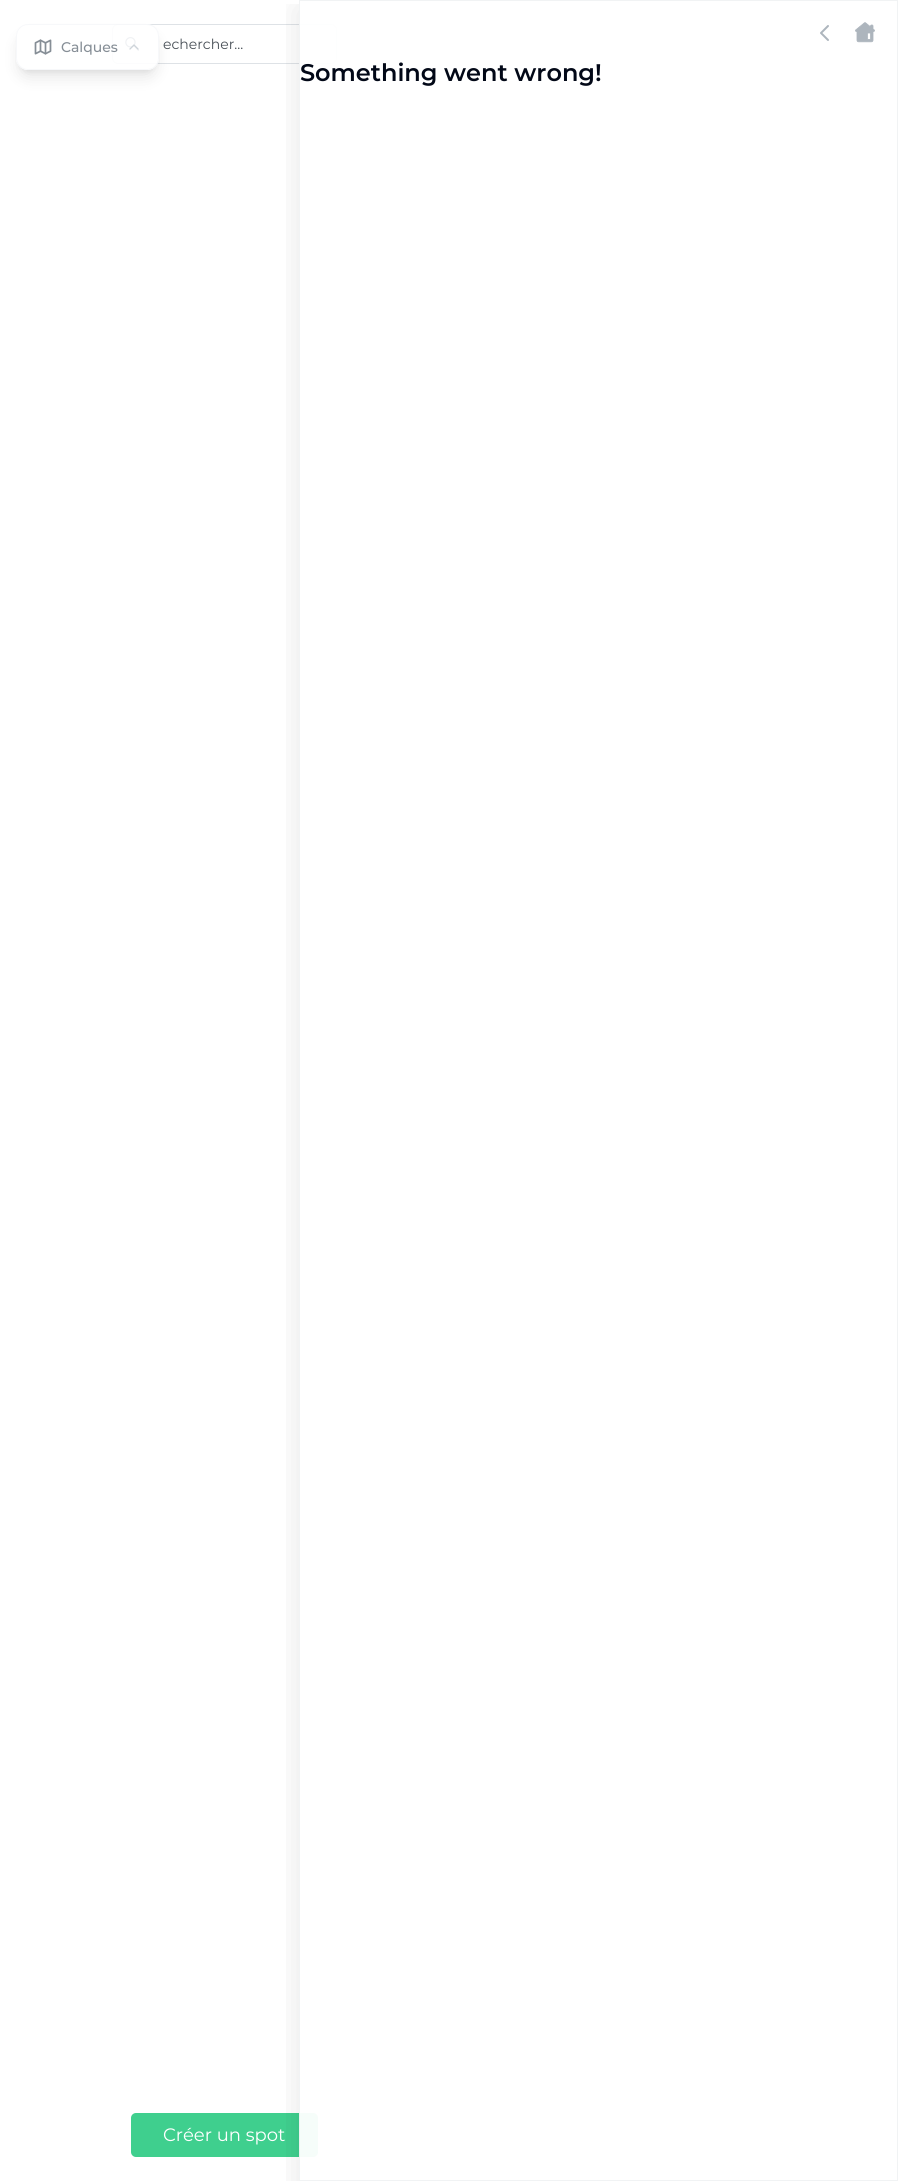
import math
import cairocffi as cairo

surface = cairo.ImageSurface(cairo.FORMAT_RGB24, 898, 2181)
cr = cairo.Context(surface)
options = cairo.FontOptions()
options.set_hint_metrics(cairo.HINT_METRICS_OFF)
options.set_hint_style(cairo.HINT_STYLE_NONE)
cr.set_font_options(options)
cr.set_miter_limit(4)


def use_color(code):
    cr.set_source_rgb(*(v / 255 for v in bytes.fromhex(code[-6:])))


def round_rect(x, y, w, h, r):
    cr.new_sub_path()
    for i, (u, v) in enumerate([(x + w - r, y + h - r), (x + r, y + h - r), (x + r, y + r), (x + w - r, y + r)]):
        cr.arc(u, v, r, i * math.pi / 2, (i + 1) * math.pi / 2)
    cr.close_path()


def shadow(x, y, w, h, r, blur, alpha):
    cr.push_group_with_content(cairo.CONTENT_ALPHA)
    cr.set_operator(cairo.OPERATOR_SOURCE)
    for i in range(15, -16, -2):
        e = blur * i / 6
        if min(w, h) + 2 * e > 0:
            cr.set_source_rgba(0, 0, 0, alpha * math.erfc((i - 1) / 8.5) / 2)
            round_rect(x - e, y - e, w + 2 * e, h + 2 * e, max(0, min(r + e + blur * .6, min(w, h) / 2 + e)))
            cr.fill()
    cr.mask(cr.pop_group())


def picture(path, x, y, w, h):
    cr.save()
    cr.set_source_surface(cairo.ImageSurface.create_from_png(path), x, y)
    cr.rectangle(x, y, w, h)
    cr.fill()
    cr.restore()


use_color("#ffffff")
cr.paint()
round_rect(112.5, 24.5, 224, 39, 5.5)
use_color("#dee2e6")
cr.set_line_width(1)
cr.stroke()
picture("img2.png", 125, 37, 15, 14)
cr.save()
cr.set_fill_rule(cairo.FILL_RULE_EVEN_ODD)
cr.new_path()
cr.move_to(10, 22)
cr.line_to(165, 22)
cr.line_to(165, 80)
cr.line_to(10, 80)
cr.close_path()
cr.move_to(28, 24)
cr.line_to(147, 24)
cr.curve_to(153.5, 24, 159, 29.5, 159, 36)
cr.line_to(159, 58)
cr.curve_to(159, 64.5, 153.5, 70, 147, 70)
cr.line_to(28, 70)
cr.curve_to(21.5, 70, 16, 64.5, 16, 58)
cr.line_to(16, 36)
cr.curve_to(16, 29.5, 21.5, 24, 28, 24)
cr.close_path()
cr.clip()
use_color("#000000")
shadow(20, 32, 135, 38, 8, 3, 0.1)
cr.restore()
cr.save()
cr.set_fill_rule(cairo.FILL_RULE_EVEN_ODD)
cr.new_path()
cr.move_to(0, 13)
cr.line_to(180, 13)
cr.line_to(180, 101)
cr.line_to(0, 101)
cr.close_path()
cr.move_to(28, 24)
cr.line_to(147, 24)
cr.curve_to(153.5, 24, 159, 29.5, 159, 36)
cr.line_to(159, 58)
cr.curve_to(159, 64.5, 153.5, 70, 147, 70)
cr.line_to(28, 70)
cr.curve_to(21.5, 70, 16, 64.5, 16, 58)
cr.line_to(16, 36)
cr.curve_to(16, 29.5, 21.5, 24, 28, 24)
cr.close_path()
cr.clip()
use_color("#000000")
shadow(19, 37, 137, 40, 9, 7.5, 0.1)
cr.restore()
cr.set_source_rgba(1, 1, 1, 0.9)
round_rect(16, 24, 143, 46, 12)
cr.fill()
round_rect(16.5, 24.5, 142, 45, 11.5)
cr.set_source_rgba(0.945, 0.953, 0.961, 0.5)
cr.stroke()
picture("img1.png", 34, 39, 18, 16)
cr.select_font_face("Montserrat Medium")
cr.set_font_size(14)
use_color("#868e96")
cr.move_to(61, 52)
cr.show_text("Calques")
cr.new_path()
cr.move_to(130, 49)
cr.line_to(134, 45)
cr.line_to(138, 49)
use_color("#ced4da")
cr.set_line_width(1.3)
cr.set_line_cap(cairo.LINE_CAP_ROUND)
cr.set_line_join(cairo.LINE_JOIN_ROUND)
cr.stroke()
cr.select_font_face("Montserrat")
use_color("#495057")
cr.move_to(163, 49)
cr.show_text("echercher...")
use_color("#3fcf8e")
round_rect(131, 2113, 187, 44, 5)
cr.fill()
cr.set_font_size(18)
use_color("#ffffff")
cr.move_to(163, 2141)
cr.show_text("Créer un spot")
cr.save()
cr.rectangle(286, 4, 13, 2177)
cr.clip()
use_color("#000000")
shadow(299, 8, 599, 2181, 0, 16, 0.1)
cr.restore()
cr.set_source_rgba(1, 1, 1, 0.95)
cr.rectangle(299, 24, 38, 2133)
cr.fill()
cr.rectangle(299.5, 0.5, 598, 2180)
cr.set_source_rgba(0.82, 0.835, 0.859, 0.3)
cr.set_line_width(1)
cr.set_line_cap(cairo.LINE_CAP_BUTT)
cr.set_line_join(cairo.LINE_JOIN_MITER)
cr.stroke()
cr.new_path()
cr.move_to(828, 40)
cr.line_to(821, 33)
cr.line_to(828, 26)
use_color("#adb5bd")
cr.set_line_width(2)
cr.set_line_cap(cairo.LINE_CAP_ROUND)
cr.set_line_join(cairo.LINE_JOIN_ROUND)
cr.stroke()
picture("img3.png", 855, 22, 20, 21)
cr.select_font_face("Montserrat SemiBold")
cr.set_font_size(24)
use_color("#020817")
cr.move_to(300, 81)
cr.show_text("Something went wrong!")
surface.write_to_png("result.png")
